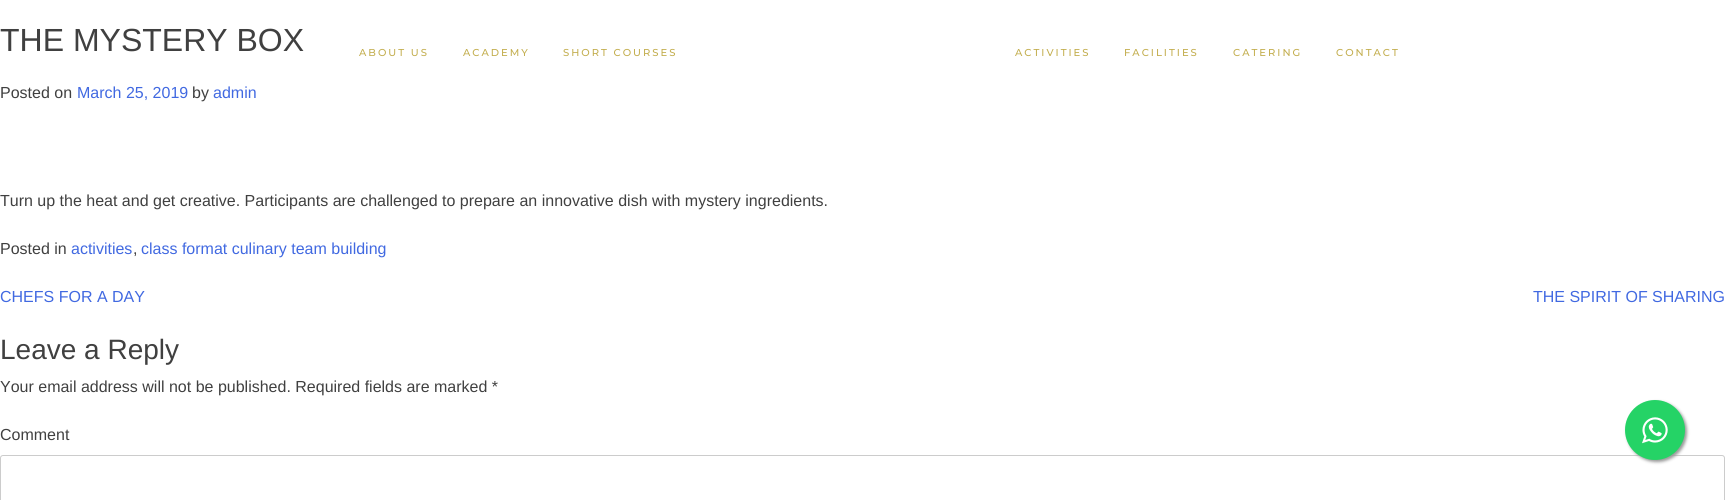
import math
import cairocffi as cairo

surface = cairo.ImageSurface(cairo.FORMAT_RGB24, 1725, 500)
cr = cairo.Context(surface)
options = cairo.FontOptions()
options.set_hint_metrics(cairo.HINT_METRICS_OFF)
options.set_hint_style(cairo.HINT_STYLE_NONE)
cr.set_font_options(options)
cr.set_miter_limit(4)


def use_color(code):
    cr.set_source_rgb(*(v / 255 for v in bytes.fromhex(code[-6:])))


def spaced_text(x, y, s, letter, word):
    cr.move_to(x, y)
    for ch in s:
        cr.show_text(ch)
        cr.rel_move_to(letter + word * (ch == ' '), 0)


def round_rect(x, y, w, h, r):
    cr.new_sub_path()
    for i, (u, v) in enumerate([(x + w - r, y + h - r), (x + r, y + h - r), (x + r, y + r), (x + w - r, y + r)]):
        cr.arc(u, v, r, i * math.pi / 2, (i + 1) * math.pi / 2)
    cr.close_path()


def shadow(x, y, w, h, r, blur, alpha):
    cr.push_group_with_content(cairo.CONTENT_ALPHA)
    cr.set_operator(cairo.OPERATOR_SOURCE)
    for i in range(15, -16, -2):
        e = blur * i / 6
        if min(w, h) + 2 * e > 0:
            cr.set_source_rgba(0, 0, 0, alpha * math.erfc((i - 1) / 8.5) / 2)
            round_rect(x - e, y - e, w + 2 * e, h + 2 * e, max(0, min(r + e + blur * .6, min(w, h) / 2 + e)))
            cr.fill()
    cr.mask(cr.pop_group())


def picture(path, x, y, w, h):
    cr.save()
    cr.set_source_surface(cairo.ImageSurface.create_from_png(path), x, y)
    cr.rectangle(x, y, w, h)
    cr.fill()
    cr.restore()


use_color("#ffffff")
cr.paint()
cr.select_font_face("Liberation Sans")
cr.set_font_size(32)
use_color("#404040")
cr.move_to(0, 51)
cr.show_text("THE MYSTERY BOX")
cr.set_font_size(16)
cr.move_to(0, 98)
cr.show_text("Posted on")
use_color("#4169e1")
cr.move_to(77, 98)
cr.show_text("March 25, 2019")
use_color("#404040")
cr.move_to(192, 98)
cr.show_text("by")
use_color("#4169e1")
cr.move_to(213, 98)
cr.show_text("admin")
use_color("#404040")
cr.move_to(0, 206)
cr.show_text("Turn up the heat and get creative. Participants are challenged to prepare an innovative dish with mystery ingredients.")
cr.move_to(0, 254)
cr.show_text("Posted in")
use_color("#4169e1")
cr.move_to(71, 254)
cr.show_text("activities")
use_color("#404040")
cr.move_to(133, 254)
cr.show_text(",")
use_color("#4169e1")
cr.move_to(141, 254)
cr.show_text("class format culinary team building")
cr.move_to(0, 302)
cr.show_text("CHEFS FOR A DAY")
cr.move_to(1533, 302)
cr.show_text("THE SPIRIT OF SHARING")
cr.set_font_size(28)
use_color("#404040")
cr.move_to(0, 359)
cr.show_text("Leave a Reply")
cr.set_font_size(16)
cr.move_to(0, 392)
cr.show_text("Your email address will not be published. Required fields are marked *")
cr.move_to(0, 440)
cr.show_text("Comment")
round_rect(0.5, 455.5, 1724, 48, 2.5)
use_color("#cccccc")
cr.set_line_width(1)
cr.stroke()
cr.select_font_face("Montserrat Medium")
cr.set_font_size(10)
use_color("#c3ae4f")
spaced_text(359, 56, "ABOUT US", 2, 0)
spaced_text(463, 56, "ACADEMY", 2, 0)
spaced_text(563, 56, "SHORT COURSES", 2, 0)
spaced_text(1015, 56, "ACTIVITIES", 2, 0)
spaced_text(1124, 56, "FACILITIES", 2, 0)
spaced_text(1233, 56, "CATERING", 2, 0)
spaced_text(1336, 56, "CONTACT", 2, 0)
use_color("#999999")
shadow(1627, 402, 60, 60, 30, 1.5, 1)
use_color("#25d366")
cr.arc(1655, 430, 30, 0, 2 * math.pi)
cr.fill()
picture("img1.png", 1642, 417, 26, 27)
surface.write_to_png("result.png")
